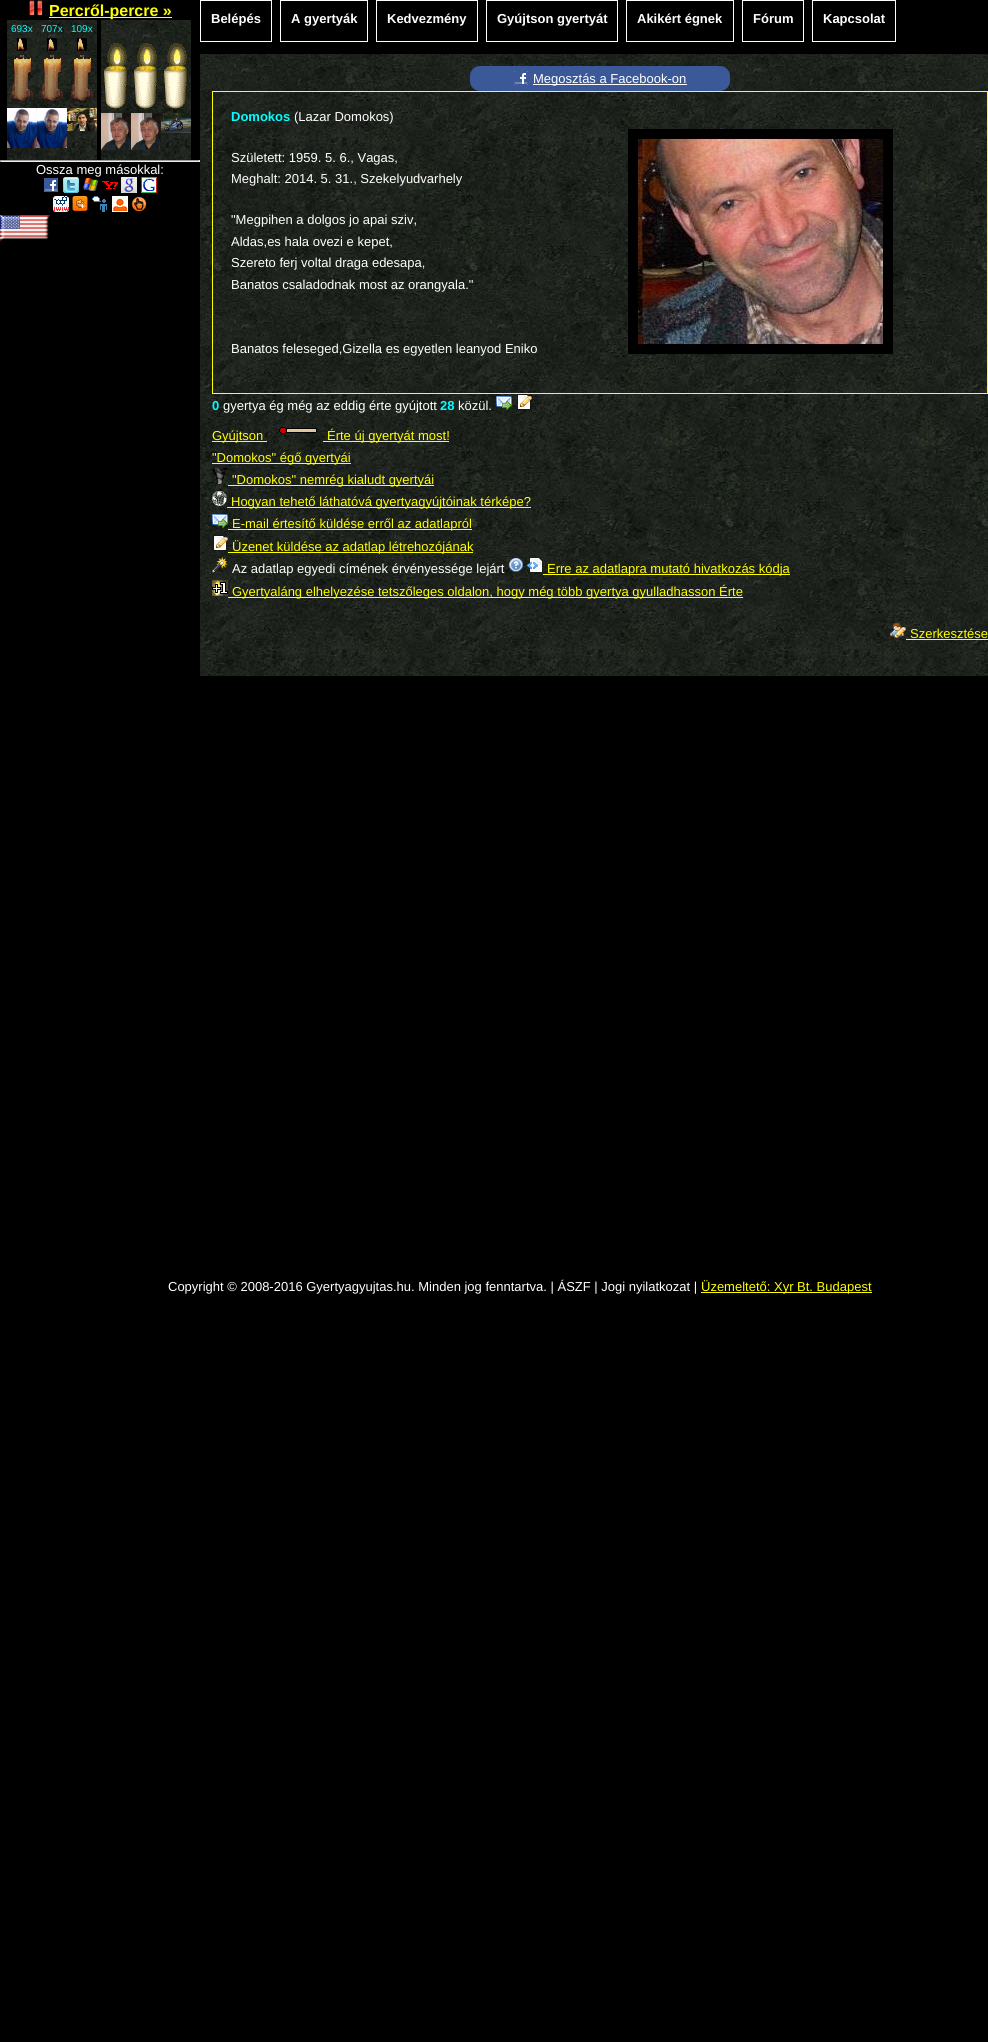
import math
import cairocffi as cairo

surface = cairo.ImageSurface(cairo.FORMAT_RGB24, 988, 2042)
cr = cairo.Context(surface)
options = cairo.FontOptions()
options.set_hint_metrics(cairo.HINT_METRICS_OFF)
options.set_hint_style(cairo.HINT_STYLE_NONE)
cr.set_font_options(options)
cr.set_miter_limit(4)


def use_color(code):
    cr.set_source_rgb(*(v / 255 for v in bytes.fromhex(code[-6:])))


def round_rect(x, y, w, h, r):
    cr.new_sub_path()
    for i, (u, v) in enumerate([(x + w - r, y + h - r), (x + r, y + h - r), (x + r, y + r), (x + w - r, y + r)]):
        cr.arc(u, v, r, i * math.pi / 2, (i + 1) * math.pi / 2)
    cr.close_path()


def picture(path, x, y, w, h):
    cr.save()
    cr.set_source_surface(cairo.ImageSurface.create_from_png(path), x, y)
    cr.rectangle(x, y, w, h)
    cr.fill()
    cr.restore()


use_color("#000000")
cr.paint()
picture("img1.png", 29, 0, 14, 16)
use_color("#ffff00")
cr.rectangle(49, 17, 123, 1)
cr.fill()
cr.select_font_face("Liberation Sans", cairo.FONT_SLANT_NORMAL, cairo.FONT_WEIGHT_BOLD)
cr.set_font_size(16)
cr.move_to(49, 16)
cr.show_text("Percről-percre »")
picture("img2.png", 7, 20, 90, 140)
cr.select_font_face("Liberation Sans")
cr.set_font_size(10)
use_color("#00ffff")
cr.move_to(11, 32)
cr.show_text("693x")
picture("img3.png", 11, 38, 22, 64)
picture("img4.png", 7, 108, 30, 40)
cr.move_to(41, 32)
cr.show_text("707x")
picture("img5.png", 41, 38, 22, 64)
picture("img4.png", 37, 108, 30, 40)
cr.move_to(71, 32)
cr.show_text("109x")
picture("img6.png", 71, 38, 22, 64)
picture("img7.png", 67, 108, 30, 23)
picture("img2.png", 101, 20, 90, 140)
picture("img8.png", 103, 43, 25, 66)
picture("img9.png", 101, 113, 30, 37)
picture("img10.png", 133, 43, 25, 66)
picture("img9.png", 131, 113, 30, 37)
picture("img11.png", 163, 43, 25, 66)
picture("img12.png", 161, 113, 30, 20)
use_color("#9f9f9f")
cr.rectangle(0, 160, 200, 1)
cr.fill()
use_color("#eeeeee")
cr.rectangle(199, 160, 1, 2)
cr.fill()
cr.rectangle(0, 161, 200, 1)
cr.fill()
use_color("#9f9f9f")
cr.rectangle(0, 160, 1, 2)
cr.fill()
cr.set_font_size(13)
use_color("#ffffff")
cr.move_to(36, 174)
cr.show_text("Ossza meg másokkal:")
picture("img13.png", 44, 178, 14, 14)
picture("img14.png", 63, 177, 16, 16)
picture("img15.png", 83, 178, 15, 13)
picture("img16.png", 102, 181, 16, 8)
picture("img17.png", 121, 177, 16, 16)
picture("img18.png", 141, 177, 16, 16)
picture("img19.png", 53, 196, 16, 16)
picture("img20.png", 72, 196, 16, 15)
picture("img21.png", 92, 196, 15, 16)
picture("img22.png", 112, 196, 16, 16)
picture("img23.png", 131, 196, 16, 16)
picture("img24.png", 0, 215, 50, 26)
cr.rectangle(200.5, 0.5, 71, 41)
cr.set_line_width(1)
cr.stroke()
cr.select_font_face("Liberation Sans", cairo.FONT_SLANT_NORMAL, cairo.FONT_WEIGHT_BOLD)
cr.move_to(211, 23)
cr.show_text("Belépés")
cr.rectangle(280.5, 0.5, 87, 41)
cr.stroke()
cr.move_to(291, 23)
cr.show_text("A gyertyák")
cr.rectangle(376.5, 0.5, 101, 41)
cr.stroke()
cr.move_to(387, 23)
cr.show_text("Kedvezmény")
cr.rectangle(486.5, 0.5, 131, 41)
cr.stroke()
cr.move_to(497, 23)
cr.show_text("Gyújtson gyertyát")
cr.rectangle(626.5, 0.5, 107, 41)
cr.stroke()
cr.move_to(637, 23)
cr.show_text("Akikért égnek")
cr.rectangle(742.5, 0.5, 61, 41)
cr.stroke()
cr.move_to(753, 23)
cr.show_text("Fórum")
cr.rectangle(812.5, 0.5, 83, 41)
cr.stroke()
cr.move_to(823, 23)
cr.show_text("Kapcsolat")
picture("img25.png", 200, 54, 788, 622)
use_color("#3b5998")
round_rect(470, 66, 260, 25, 10)
cr.fill()
picture("img13.png", 514, 71, 14, 14)
use_color("#ffffff")
cr.rectangle(533, 84, 154, 1)
cr.fill()
cr.select_font_face("Liberation Sans")
cr.move_to(533, 83)
cr.show_text("Megosztás a Facebook-on")
cr.rectangle(212.5, 91.5, 775, 302)
use_color("#ffff00")
cr.stroke()
cr.select_font_face("Liberation Sans", cairo.FONT_SLANT_NORMAL, cairo.FONT_WEIGHT_BOLD)
use_color("#00ffff")
cr.move_to(231, 121)
cr.show_text("Domokos")
cr.select_font_face("Liberation Sans")
use_color("#ffffff")
cr.move_to(294, 121)
cr.show_text("(Lazar Domokos)")
cr.move_to(231, 162)
cr.show_text("Született: 1959. 5. 6., Vagas,")
cr.move_to(231, 183)
cr.show_text("Meghalt: 2014. 5. 31., Szekelyudvarhely")
cr.move_to(231, 224)
cr.show_text("\"Megpihen a dolgos jo apai sziv,")
cr.move_to(231, 246)
cr.show_text("Aldas,es hala ovezi e kepet,")
cr.move_to(231, 267)
cr.show_text("Szereto ferj voltal draga edesapa,")
cr.move_to(231, 289)
cr.show_text("Banatos csaladodnak most az orangyala.\"")
cr.move_to(231, 353)
cr.show_text("Banatos feleseged,Gizella es egyetlen leanyod Eniko")
picture("img26.png", 628, 129, 265, 225)
cr.select_font_face("Liberation Sans", cairo.FONT_SLANT_NORMAL, cairo.FONT_WEIGHT_BOLD)
use_color("#00ffff")
cr.move_to(212, 410)
cr.show_text("0")
cr.select_font_face("Liberation Sans")
use_color("#ffffff")
cr.move_to(223, 410)
cr.show_text("gyertya ég még az eddig érte gyújtott")
cr.select_font_face("Liberation Sans", cairo.FONT_SLANT_NORMAL, cairo.FONT_WEIGHT_BOLD)
use_color("#00ffff")
cr.move_to(440, 410)
cr.show_text("28")
cr.select_font_face("Liberation Sans")
use_color("#ffffff")
cr.move_to(458, 410)
cr.show_text("közül.")
picture("img27.png", 496, 396, 16, 14)
picture("img28.png", 517, 394, 15, 16)
use_color("#ffff00")
cr.rectangle(212, 441, 55, 1)
cr.fill()
cr.move_to(212, 440)
cr.show_text("Gyújtson")
picture("img29.png", 279, 427, 38, 7)
cr.rectangle(323, 441, 126, 1)
cr.fill()
cr.move_to(327, 440)
cr.show_text("Érte új gyertyát most!")
cr.rectangle(212, 463, 139, 1)
cr.fill()
cr.move_to(212, 462)
cr.show_text("\"Domokos\" égő gyertyái")
picture("img30.png", 213, 468, 15, 16)
cr.rectangle(228, 485, 206, 1)
cr.fill()
cr.move_to(232, 484)
cr.show_text("\"Domokos\" nemrég kialudt gyertyái")
picture("img31.png", 212, 491, 15, 15)
cr.rectangle(227, 507, 304, 1)
cr.fill()
cr.move_to(231, 506)
cr.show_text("Hogyan tehető láthatóvá gyertyagyújtóinak térképe?")
picture("img32.png", 212, 514, 16, 14)
cr.rectangle(228, 529, 244, 1)
cr.fill()
cr.move_to(232, 528)
cr.show_text("E-mail értesítő küldése erről az adatlapról")
picture("img33.png", 213, 535, 15, 16)
cr.rectangle(228, 552, 245, 1)
cr.fill()
cr.move_to(232, 551)
cr.show_text("Üzenet küldése az adatlap létrehozójának")
picture("img34.png", 212, 557, 15, 16)
use_color("#ffffff")
cr.move_to(232, 573)
cr.show_text("Az adatlap egyedi címének érvényessége lejárt")
picture("img35.png", 509, 558, 14, 14)
picture("img36.png", 527, 557, 16, 16)
use_color("#ffff00")
cr.rectangle(543, 574, 247, 1)
cr.fill()
cr.move_to(547, 573)
cr.show_text("Erre az adatlapra mutató hivatkozás kódja")
picture("img37.png", 212, 580, 16, 16)
cr.rectangle(228, 597, 515, 1)
cr.fill()
cr.move_to(232, 596)
cr.show_text("Gyertyaláng elhelyezése tetszőleges oldalon, hogy még több gyertya gyulladhasson Érte")
picture("img38.png", 890, 623, 16, 15)
cr.move_to(910, 638)
cr.show_text("Szerkesztése")
cr.rectangle(906, 639, 82, 1)
cr.fill()
use_color("#ffffff")
cr.move_to(168, 1291)
cr.show_text("Copyright © 2008-2016 Gyertyagyujtas.hu. Minden jog fenntartva. | ÁSZF | Jogi nyilatkozat |")
use_color("#ffff00")
cr.rectangle(701, 1292, 171, 1)
cr.fill()
cr.move_to(701, 1291)
cr.show_text("Üzemeltető: Xyr Bt. Budapest")
surface.write_to_png("result.png")
